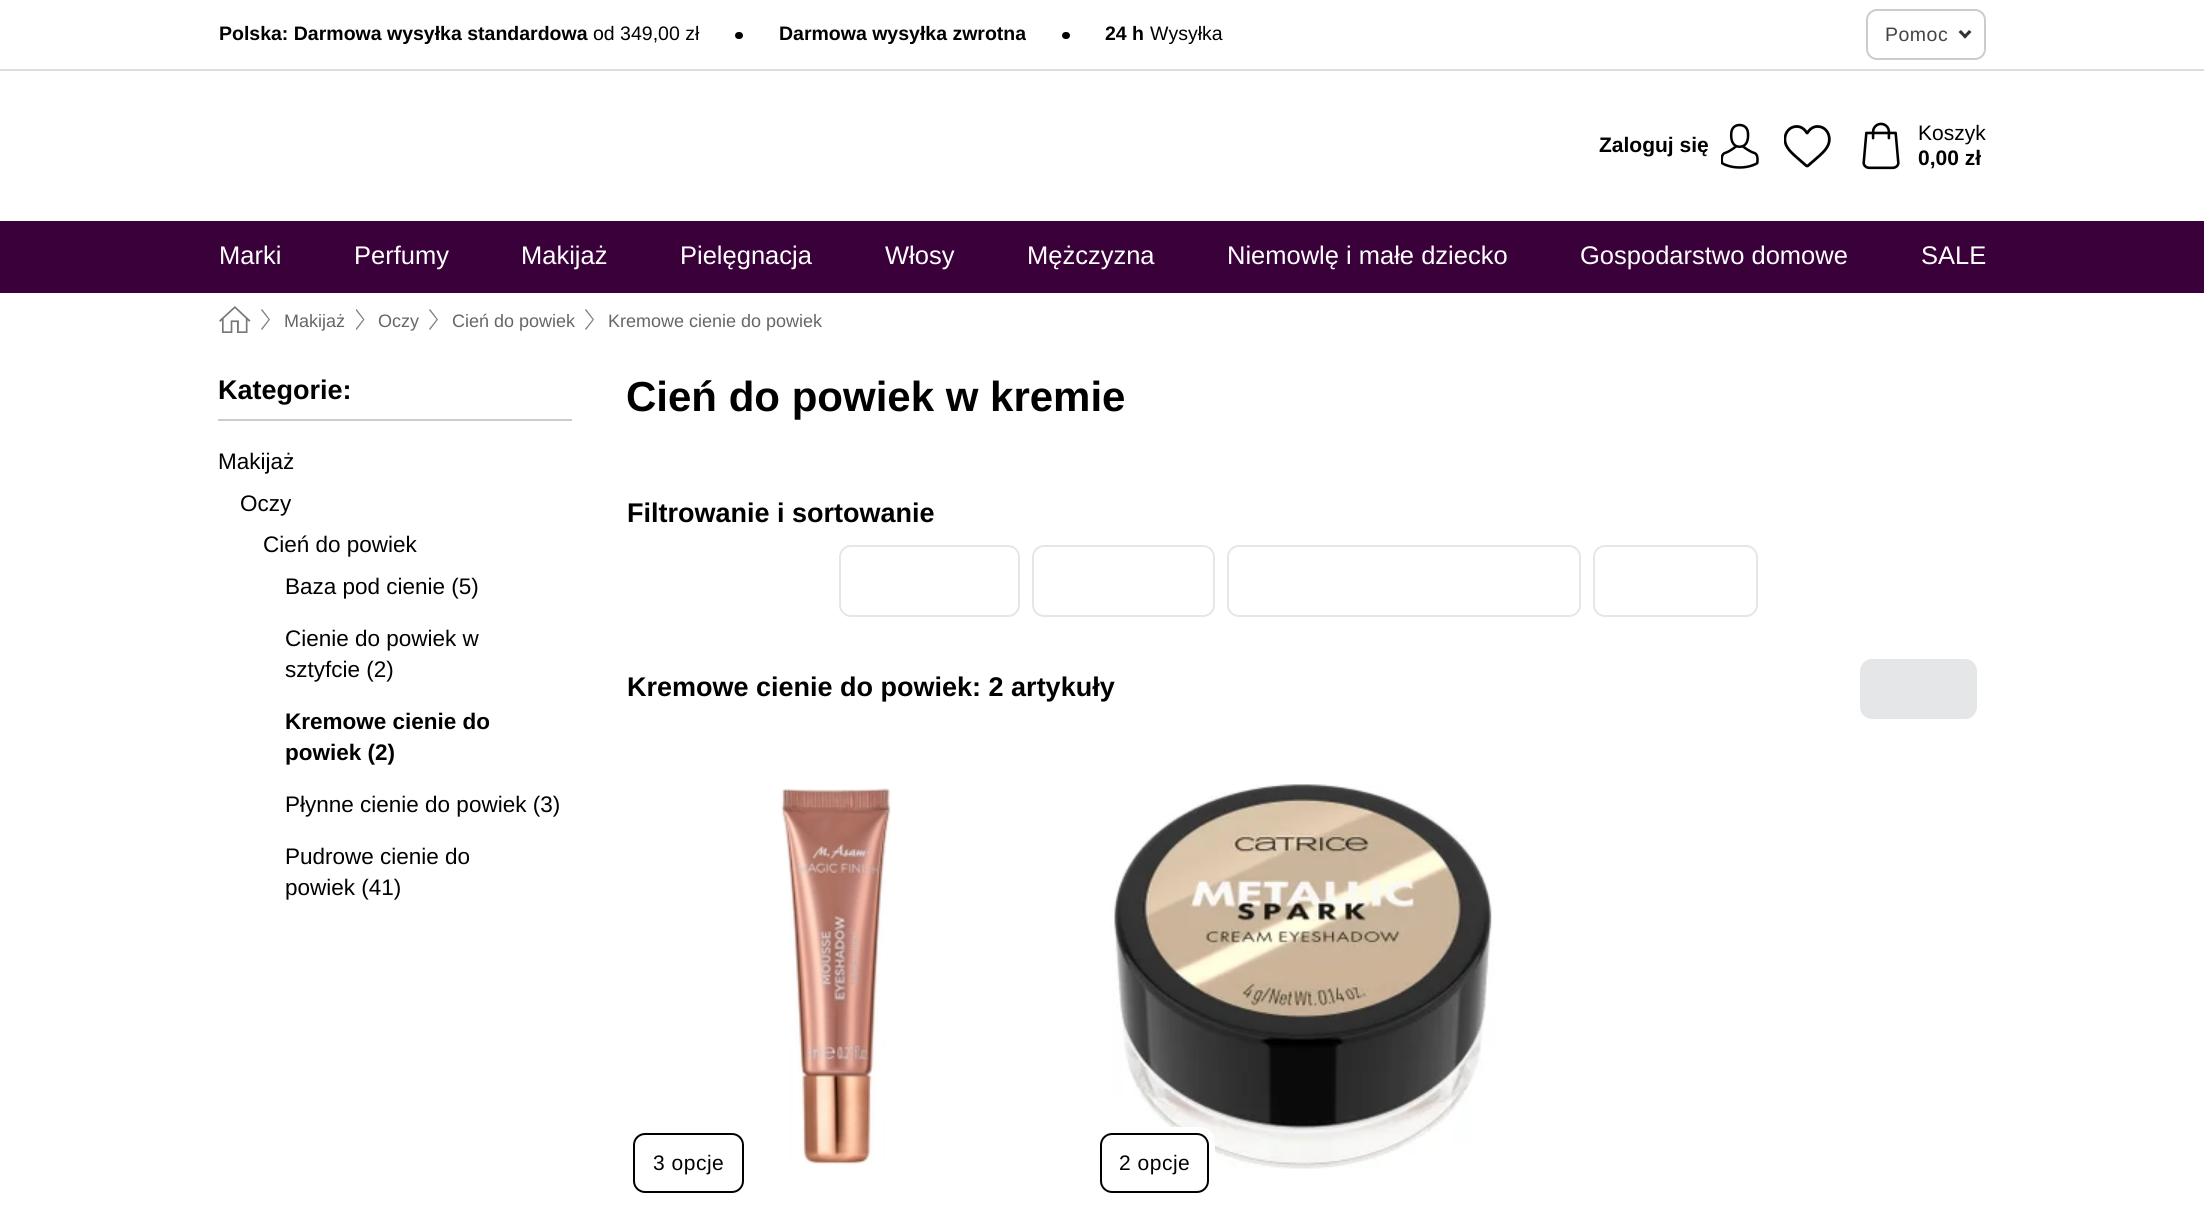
import math
import cairocffi as cairo

surface = cairo.ImageSurface(cairo.FORMAT_RGB24, 2204, 1232)
cr = cairo.Context(surface)
options = cairo.FontOptions()
options.set_hint_metrics(cairo.HINT_METRICS_OFF)
options.set_hint_style(cairo.HINT_STYLE_NONE)
cr.set_font_options(options)
cr.set_miter_limit(4)


def use_color(code):
    cr.set_source_rgb(*(v / 255 for v in bytes.fromhex(code[-6:])))


def spaced_text(x, y, s, letter, word):
    cr.move_to(x, y)
    for ch in s:
        cr.show_text(ch)
        cr.rel_move_to(letter + word * (ch == ' '), 0)


def round_rect(x, y, w, h, r):
    cr.new_sub_path()
    for i, (u, v) in enumerate([(x + w - r, y + h - r), (x + r, y + h - r), (x + r, y + r), (x + w - r, y + r)]):
        cr.arc(u, v, r, i * math.pi / 2, (i + 1) * math.pi / 2)
    cr.close_path()


def picture(path, x, y, w, h):
    cr.save()
    cr.set_source_surface(cairo.ImageSurface.create_from_png(path), x, y)
    cr.rectangle(x, y, w, h)
    cr.fill()
    cr.restore()


use_color("#ffffff")
cr.paint()
use_color("#dddddd")
cr.rectangle(0, 69, 2204, 2)
cr.fill()
cr.select_font_face("Liberation Sans", cairo.FONT_SLANT_NORMAL, cairo.FONT_WEIGHT_BOLD)
cr.set_font_size(19.5)
use_color("#000000")
cr.move_to(219, 40)
cr.show_text("Polska: Darmowa wysyłka standardowa")
cr.select_font_face("Liberation Sans")
cr.move_to(593, 40)
cr.show_text("od 349,00 zł")
round_rect(735, 32, 8, 7, 3.5)
cr.fill()
cr.select_font_face("Liberation Sans", cairo.FONT_SLANT_NORMAL, cairo.FONT_WEIGHT_BOLD)
cr.move_to(779, 40)
cr.show_text("Darmowa wysyłka zwrotna")
round_rect(1062, 32, 8, 7, 3.5)
cr.fill()
cr.move_to(1105, 40)
cr.show_text("24 h")
cr.select_font_face("Liberation Sans")
cr.move_to(1150, 40)
cr.show_text("Wysyłka")
round_rect(1867, 10, 118, 49, 10)
use_color("#cccccc")
cr.stroke()
use_color("#444444")
spaced_text(1885, 41, "Pomoc", 0.5, 0)
use_color("#333333")
cr.new_path()
cr.move_to(1969, 30)
cr.line_to(1971.5, 32)
cr.line_to(1965, 38.5)
cr.line_to(1963, 36.5)
cr.close_path()
cr.fill()
cr.new_path()
cr.move_to(1961, 30)
cr.line_to(1967, 36.5)
cr.line_to(1965, 38.5)
cr.line_to(1958.5, 32)
cr.close_path()
cr.fill()
cr.select_font_face("Liberation Sans", cairo.FONT_SLANT_NORMAL, cairo.FONT_WEIGHT_BOLD)
cr.set_font_size(21)
use_color("#000000")
cr.move_to(1599, 152)
cr.show_text("Zaloguj się")
picture("img1.png", 1721, 123, 38, 46)
picture("img2.png", 1784, 125, 47, 43)
picture("img3.png", 1862, 122, 38, 48)
cr.select_font_face("Liberation Sans")
cr.move_to(1918, 140)
cr.show_text("Koszyk")
cr.select_font_face("Liberation Sans", cairo.FONT_SLANT_NORMAL, cairo.FONT_WEIGHT_BOLD)
cr.move_to(1918, 165)
cr.show_text("0,00 zł")
use_color("#3a003a")
cr.rectangle(0, 221, 2204, 72)
cr.fill()
cr.select_font_face("Liberation Sans")
cr.set_font_size(25.5)
use_color("#ffffff")
cr.move_to(219, 264)
cr.show_text("Marki")
cr.move_to(354, 264)
cr.show_text("Perfumy")
cr.move_to(521, 264)
cr.show_text("Makijaż")
cr.move_to(680, 264)
cr.show_text("Pielęgnacja")
cr.move_to(885, 264)
cr.show_text("Włosy")
cr.move_to(1027, 264)
cr.show_text("Mężczyzna")
cr.move_to(1227, 264)
cr.show_text("Niemowlę i małe dziecko")
cr.move_to(1580, 264)
cr.show_text("Gospodarstwo domowe")
cr.move_to(1921, 264)
cr.show_text("SALE")
picture("img4.png", 219, 306, 32, 27)
use_color("#808080")
cr.new_path()
cr.move_to(262, 309)
cr.line_to(270, 319.5)
cr.line_to(262, 330)
cr.line_to(261, 329)
cr.line_to(268.5, 319.5)
cr.line_to(261, 310)
cr.close_path()
cr.fill()
cr.set_font_size(18)
use_color("#666666")
cr.move_to(284, 327)
cr.show_text("Makijaż")
cr.save()
cr.rectangle(356, 309, 9, 21)
cr.clip()
use_color("#808080")
cr.new_path()
cr.move_to(356.5, 309)
cr.line_to(364.5, 319.5)
cr.line_to(356.5, 330)
cr.line_to(355.5, 329)
cr.line_to(363, 319.5)
cr.line_to(355.5, 310)
cr.close_path()
cr.fill()
cr.restore()
cr.move_to(378, 327)
cr.show_text("Oczy")
use_color("#808080")
cr.new_path()
cr.move_to(430, 309)
cr.line_to(438, 319.5)
cr.line_to(430, 330)
cr.line_to(429, 329)
cr.line_to(436.5, 319.5)
cr.line_to(429, 310)
cr.close_path()
cr.fill()
use_color("#666666")
cr.move_to(452, 327)
cr.show_text("Cień do powiek")
use_color("#808080")
cr.new_path()
cr.move_to(586, 309)
cr.line_to(594, 319.5)
cr.line_to(586, 330)
cr.line_to(585, 329)
cr.line_to(592.5, 319.5)
cr.line_to(585, 310)
cr.close_path()
cr.fill()
use_color("#666666")
cr.move_to(608, 327)
cr.show_text("Kremowe cienie do powiek")
use_color("#cccccc")
cr.rectangle(218, 419, 354, 2)
cr.fill()
cr.select_font_face("Liberation Sans", cairo.FONT_SLANT_NORMAL, cairo.FONT_WEIGHT_BOLD)
cr.set_font_size(27)
use_color("#000000")
cr.move_to(218, 399)
cr.show_text("Kategorie:")
cr.select_font_face("Liberation Sans")
cr.set_font_size(22.5)
cr.move_to(218, 469)
cr.show_text("Makijaż")
cr.move_to(240, 511)
cr.show_text("Oczy")
cr.move_to(263, 552)
cr.show_text("Cień do powiek")
cr.move_to(285, 594)
cr.show_text("Baza pod cienie (5)")
cr.move_to(285, 646)
cr.show_text("Cienie do powiek w")
cr.move_to(285, 677)
cr.show_text("sztyfcie (2)")
cr.select_font_face("Liberation Sans", cairo.FONT_SLANT_NORMAL, cairo.FONT_WEIGHT_BOLD)
cr.move_to(285, 729)
cr.show_text("Kremowe cienie do")
cr.move_to(285, 760)
cr.show_text("powiek (2)")
cr.select_font_face("Liberation Sans")
cr.move_to(285, 812)
cr.show_text("Płynne cienie do powiek (3)")
cr.move_to(285, 864)
cr.show_text("Pudrowe cienie do")
cr.move_to(285, 895)
cr.show_text("powiek (41)")
cr.select_font_face("Liberation Sans", cairo.FONT_SLANT_NORMAL, cairo.FONT_WEIGHT_BOLD)
cr.set_font_size(42)
cr.move_to(626, 411)
cr.show_text("Cień do powiek w kremie")
cr.set_font_size(27)
cr.move_to(627, 522)
cr.show_text("Filtrowanie i sortowanie")
round_rect(840, 546, 179, 70, 11)
use_color("#e4e6e7")
cr.stroke()
round_rect(1033, 546, 181, 70, 11)
cr.stroke()
round_rect(1228, 546, 352, 70, 11)
cr.stroke()
round_rect(1594, 546, 163, 70, 11)
cr.stroke()
use_color("#000000")
cr.move_to(627, 696)
cr.show_text("Kremowe cienie do powiek: 2 artykuły")
use_color("#e4e6e7")
round_rect(1860, 659, 117, 60, 12)
cr.fill()
round_rect(634, 1134, 109, 58, 11)
use_color("#000000")
cr.stroke()
cr.select_font_face("Liberation Sans")
cr.set_font_size(21)
spaced_text(653, 1170, "3 opcje", 0.5, 0)
picture("img5.png", 781, 788, 111, 377)
picture("img6.png", 1110, 784, 384, 385)
use_color("#ffffff")
cr.new_path()
cr.move_to(1100, 1127)
cr.line_to(1200, 1127)
cr.curve_to(1208.5, 1127, 1215, 1133.5, 1215, 1142)
cr.line_to(1215, 1193)
cr.line_to(1100, 1193)
cr.close_path()
cr.fill()
round_rect(1101, 1134, 107, 58, 11)
use_color("#000000")
cr.stroke()
spaced_text(1119, 1170, "2 opcje", 0.5, 0)
surface.write_to_png("result.png")
